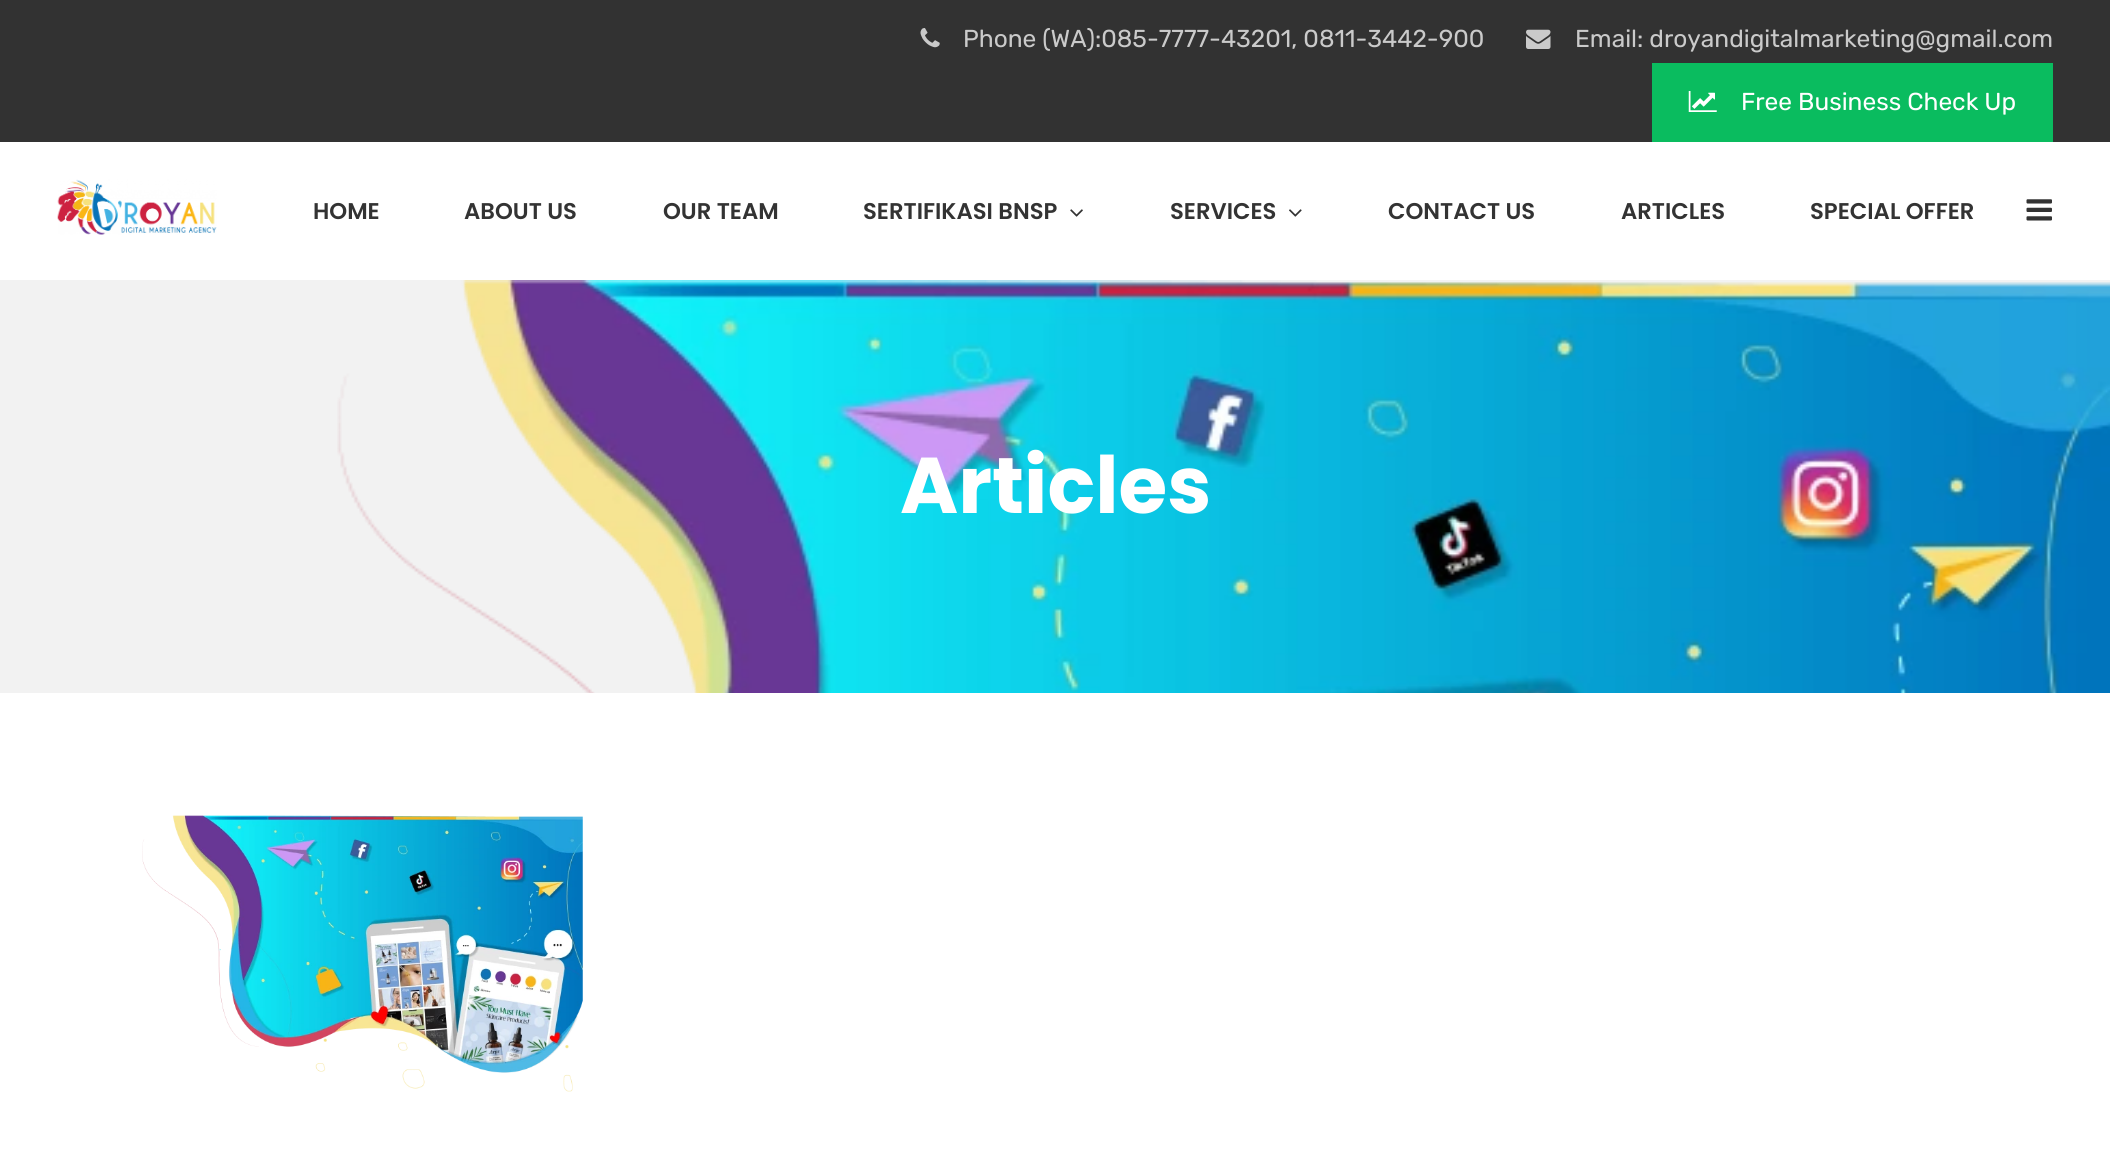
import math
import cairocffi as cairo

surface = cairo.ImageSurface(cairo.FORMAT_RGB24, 2110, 1164)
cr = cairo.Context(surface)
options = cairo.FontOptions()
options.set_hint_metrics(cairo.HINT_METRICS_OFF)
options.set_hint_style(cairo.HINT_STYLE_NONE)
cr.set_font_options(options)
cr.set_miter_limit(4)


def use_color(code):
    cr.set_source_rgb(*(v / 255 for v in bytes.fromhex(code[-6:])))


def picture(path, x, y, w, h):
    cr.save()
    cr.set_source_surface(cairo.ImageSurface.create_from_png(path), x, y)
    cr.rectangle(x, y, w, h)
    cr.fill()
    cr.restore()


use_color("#ffffff")
cr.paint()
use_color("#323232")
cr.rectangle(0, 0, 2110, 142)
cr.fill()
picture("img1.png", 920, 28, 20, 20)
cr.select_font_face("Rubik")
cr.set_font_size(24.5)
use_color("#cacaca")
cr.move_to(963, 47)
cr.show_text("Phone (WA):085-7777-43201, 0811-3442-900")
picture("img2.png", 1526, 29, 25, 20)
cr.move_to(1575, 47)
cr.show_text("Email: droyandigitalmarketing@gmail.com")
use_color("#0abc5f")
cr.rectangle(1652, 63, 401, 79)
cr.fill()
picture("img3.png", 1688, 91, 29, 21)
use_color("#ffffff")
cr.move_to(1741, 110)
cr.show_text("Free Business Check Up")
picture("img4.png", 57, 179, 160, 56)
cr.select_font_face("Poppins SemiBold")
cr.set_font_size(22.75)
use_color("#333333")
cr.move_to(313, 219)
cr.show_text("HOME")
cr.move_to(464, 219)
cr.show_text("ABOUT US")
cr.move_to(663, 219)
cr.show_text("OUR TEAM")
cr.move_to(863, 219)
cr.show_text("SERTIFIKASI BNSP")
picture("img5.png", 1070, 209, 13, 8)
cr.move_to(1170, 219)
cr.show_text("SERVICES")
picture("img6.png", 1289, 209, 13, 8)
cr.move_to(1388, 219)
cr.show_text("CONTACT US")
cr.move_to(1621, 219)
cr.show_text("ARTICLES")
cr.move_to(1810, 219)
cr.show_text("SPECIAL OFFER")
picture("img7.png", 2026, 199, 26, 22)
use_color("#f2f2f2")
cr.rectangle(0, 280, 2110, 413)
cr.fill()
picture("img8.png", 337, 280, 1773, 413)
cr.select_font_face("Poppins", cairo.FONT_SLANT_NORMAL, cairo.FONT_WEIGHT_BOLD)
cr.set_font_size(79)
use_color("#ffffff")
cr.move_to(900, 513)
cr.show_text("Articles")
picture("img9.png", 142, 815, 441, 277)
surface.write_to_png("result.png")
